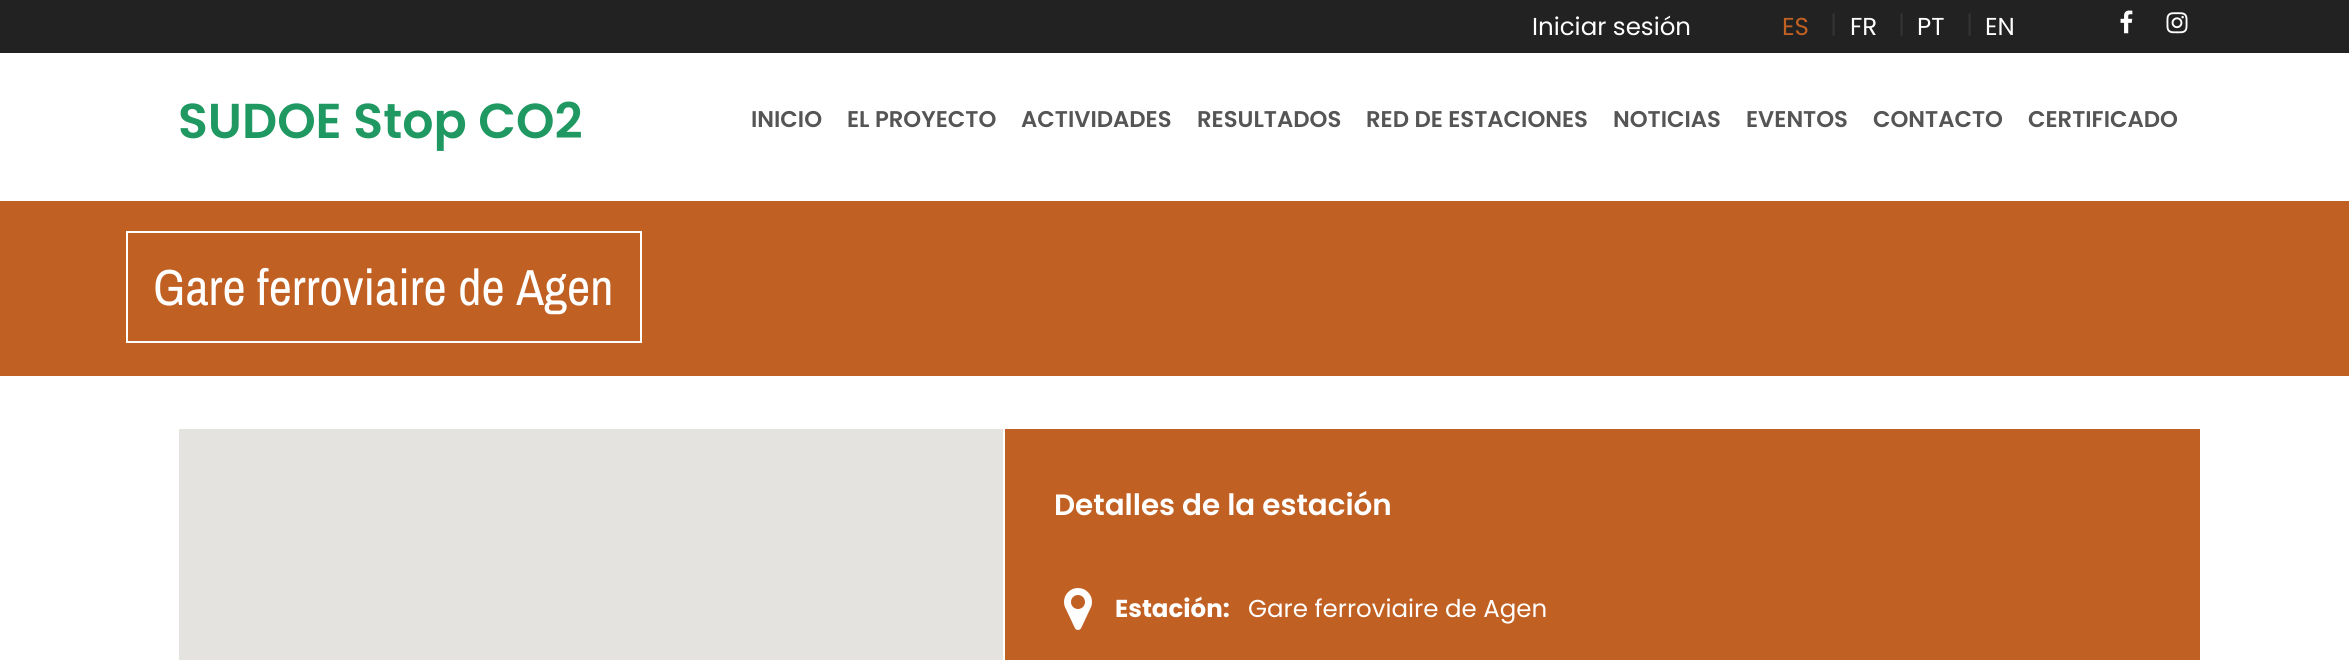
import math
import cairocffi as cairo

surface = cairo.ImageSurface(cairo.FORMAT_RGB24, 2349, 660)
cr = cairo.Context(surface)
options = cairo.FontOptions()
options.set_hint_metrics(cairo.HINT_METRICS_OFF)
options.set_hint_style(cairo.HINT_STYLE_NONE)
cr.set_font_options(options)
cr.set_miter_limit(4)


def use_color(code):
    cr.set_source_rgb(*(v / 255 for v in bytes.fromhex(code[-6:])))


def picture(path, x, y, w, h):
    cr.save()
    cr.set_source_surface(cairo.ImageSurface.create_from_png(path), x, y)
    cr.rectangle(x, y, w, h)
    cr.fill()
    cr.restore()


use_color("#ffffff")
cr.paint()
use_color("#222222")
cr.rectangle(0, 0, 2349, 53)
cr.fill()
cr.select_font_face("Poppins")
cr.set_font_size(24.5)
use_color("#ffffff")
cr.move_to(1532, 35)
cr.show_text("Iniciar sesión")
use_color("#c16023")
cr.move_to(1782, 35)
cr.show_text("ES")
use_color("#333333")
cr.move_to(1830, 33)
cr.show_text("|")
use_color("#ffffff")
cr.move_to(1850, 35)
cr.show_text("FR")
use_color("#333333")
cr.move_to(1898, 33)
cr.show_text("|")
use_color("#ffffff")
cr.move_to(1917, 35)
cr.show_text("PT")
use_color("#333333")
cr.move_to(1966, 33)
cr.show_text("|")
use_color("#ffffff")
cr.move_to(1985, 35)
cr.show_text("EN")
picture("img1.png", 2120, 10, 13, 24)
picture("img2.png", 2166, 12, 22, 22)
cr.select_font_face("Poppins SemiBold")
cr.set_font_size(49)
use_color("#1f9961")
cr.move_to(178, 138)
cr.show_text("SUDOE Stop CO2")
cr.set_font_size(22.75)
use_color("#555555")
cr.move_to(751, 127)
cr.show_text("INICIO")
cr.move_to(847, 127)
cr.show_text("EL PROYECTO")
cr.move_to(1021, 127)
cr.show_text("ACTIVIDADES")
cr.move_to(1197, 127)
cr.show_text("RESULTADOS")
cr.move_to(1366, 127)
cr.show_text("RED DE ESTACIONES")
cr.move_to(1613, 127)
cr.show_text("NOTICIAS")
cr.move_to(1746, 127)
cr.show_text("EVENTOS")
cr.move_to(1873, 127)
cr.show_text("CONTACTO")
cr.move_to(2028, 127)
cr.show_text("CERTIFICADO")
use_color("#c16023")
cr.rectangle(0, 201, 2349, 175)
cr.fill()
cr.rectangle(127, 232, 514, 110)
use_color("#ffffff")
cr.stroke()
cr.select_font_face("Archivo Narrow")
cr.set_font_size(50.75)
cr.move_to(153, 305)
cr.show_text("Gare ferroviaire de Agen")
use_color("#e5e3df")
cr.rectangle(179, 429, 824, 231)
cr.fill()
use_color("#c16023")
cr.rectangle(1005, 429, 1195, 231)
cr.fill()
cr.select_font_face("Poppins SemiBold")
cr.set_font_size(29.4)
use_color("#ffffff")
cr.move_to(1054, 515)
cr.show_text("Detalles de la estación")
picture("img3.png", 1064, 588, 28, 42)
cr.select_font_face("Poppins", cairo.FONT_SLANT_NORMAL, cairo.FONT_WEIGHT_BOLD)
cr.set_font_size(24.5)
cr.move_to(1115, 617)
cr.show_text("Estación:")
cr.select_font_face("Poppins")
cr.move_to(1248, 617)
cr.show_text("Gare ferroviaire de Agen")
surface.write_to_png("result.png")
